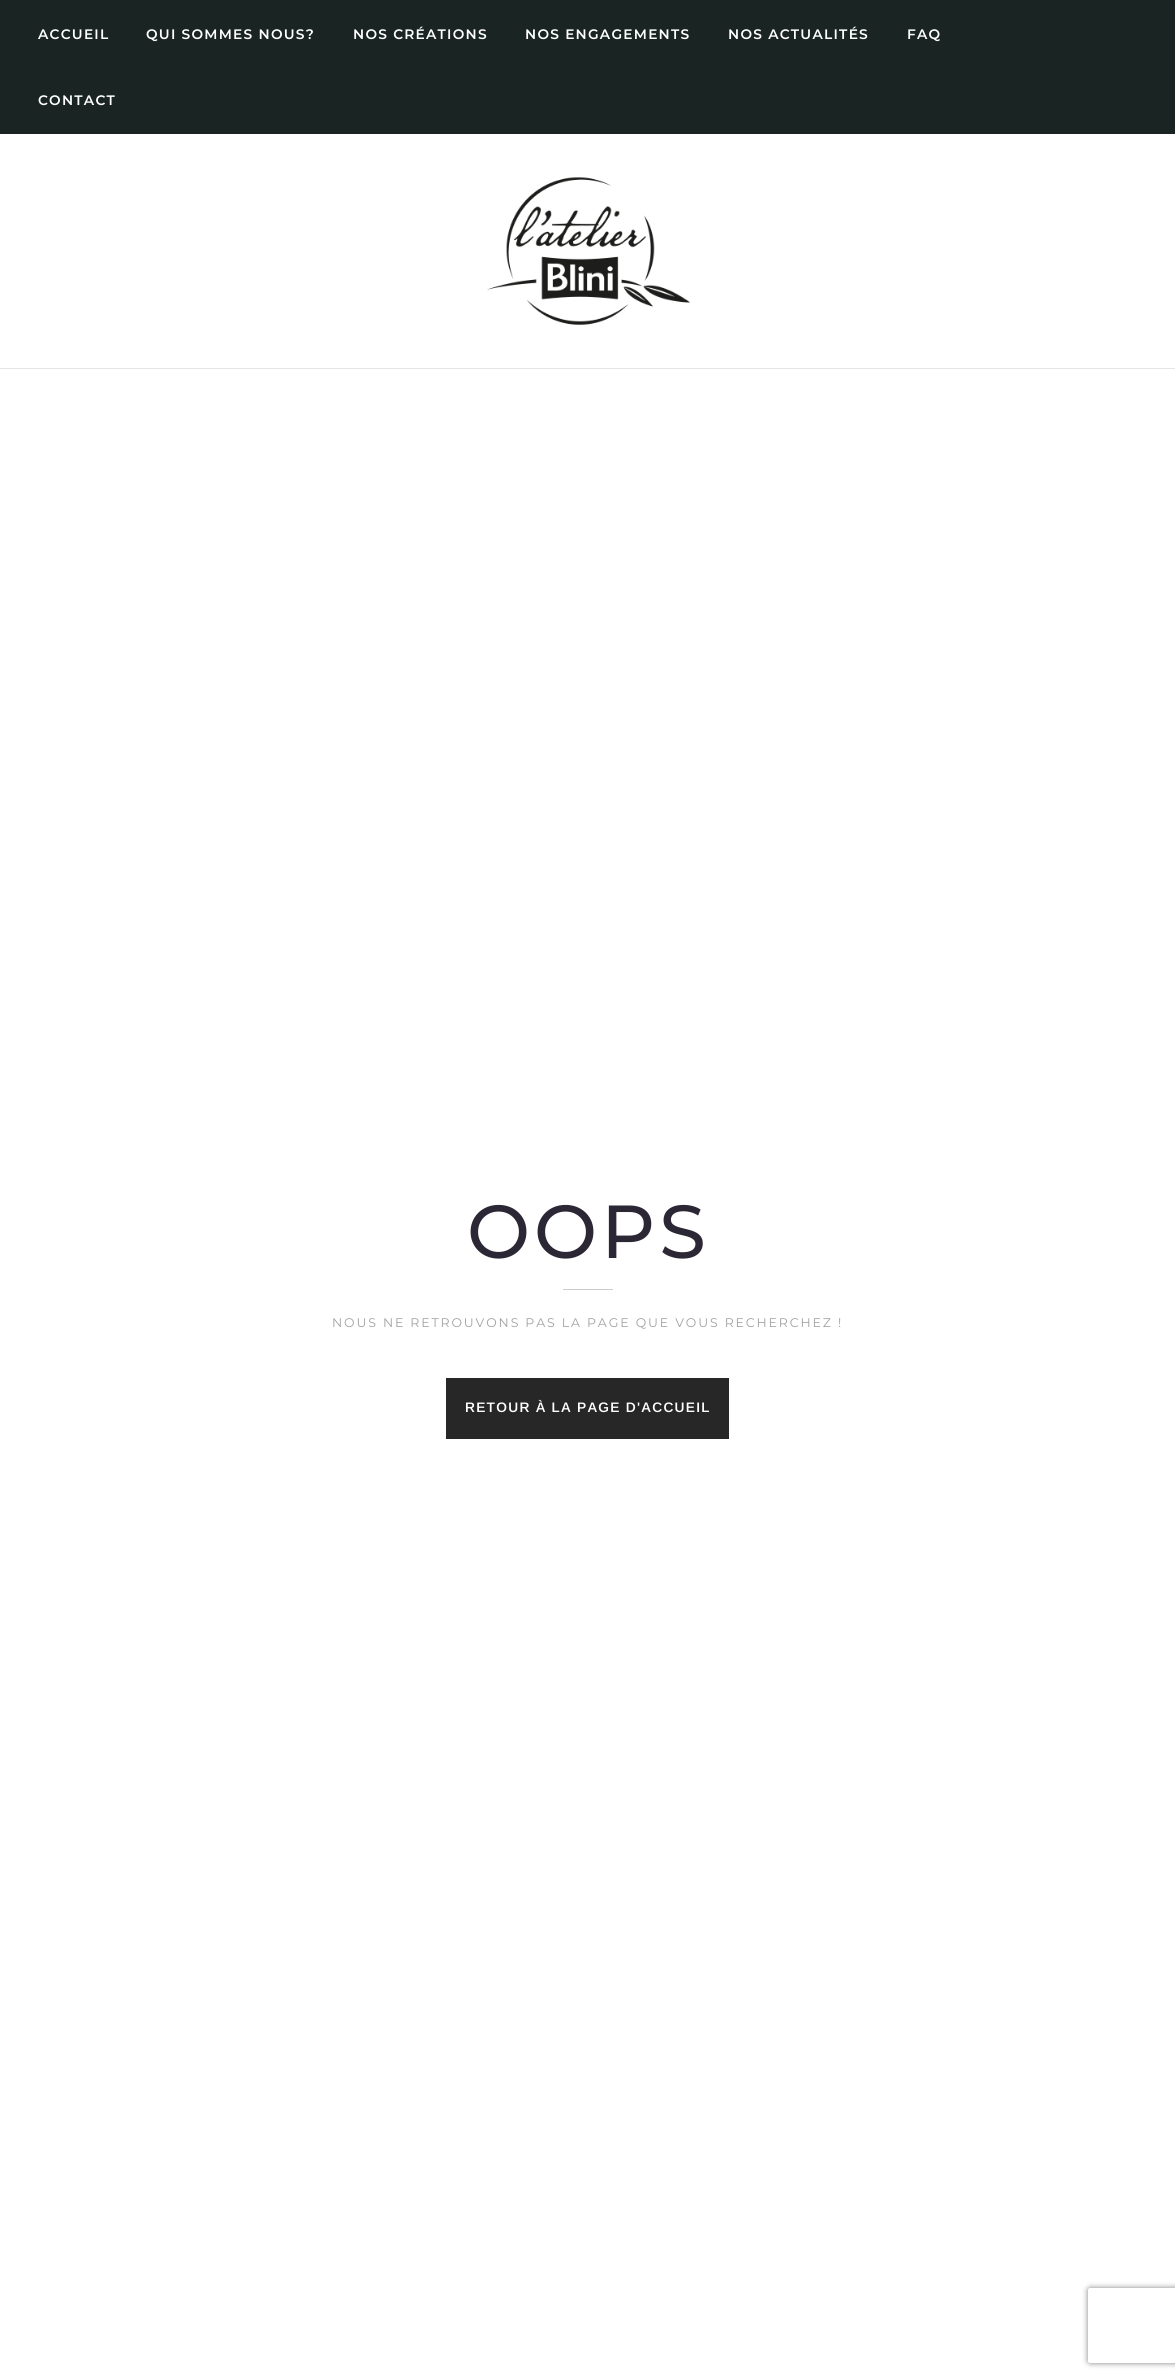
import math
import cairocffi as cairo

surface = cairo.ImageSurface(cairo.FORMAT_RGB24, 1175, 2379)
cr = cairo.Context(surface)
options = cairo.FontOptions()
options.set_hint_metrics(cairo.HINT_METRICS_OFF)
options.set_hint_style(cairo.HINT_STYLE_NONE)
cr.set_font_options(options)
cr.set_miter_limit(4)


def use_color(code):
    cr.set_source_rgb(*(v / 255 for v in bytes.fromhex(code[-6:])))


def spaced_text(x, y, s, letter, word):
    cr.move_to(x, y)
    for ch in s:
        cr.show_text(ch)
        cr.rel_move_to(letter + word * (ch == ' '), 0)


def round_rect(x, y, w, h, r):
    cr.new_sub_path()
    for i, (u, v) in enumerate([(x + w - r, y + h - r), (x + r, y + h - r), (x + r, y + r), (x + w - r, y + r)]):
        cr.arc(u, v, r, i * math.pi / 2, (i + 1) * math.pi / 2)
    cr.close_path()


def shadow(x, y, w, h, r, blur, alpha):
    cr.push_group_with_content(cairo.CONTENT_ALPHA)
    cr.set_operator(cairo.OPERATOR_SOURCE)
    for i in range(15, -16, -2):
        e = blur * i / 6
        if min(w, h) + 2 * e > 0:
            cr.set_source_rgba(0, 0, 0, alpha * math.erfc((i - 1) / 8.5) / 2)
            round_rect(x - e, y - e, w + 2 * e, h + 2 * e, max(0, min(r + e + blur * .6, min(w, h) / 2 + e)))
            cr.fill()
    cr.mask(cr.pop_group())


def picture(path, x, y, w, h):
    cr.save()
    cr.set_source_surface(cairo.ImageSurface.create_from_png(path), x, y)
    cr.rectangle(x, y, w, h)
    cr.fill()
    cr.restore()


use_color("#ffffff")
cr.paint()
use_color("#1a2423")
cr.rectangle(0, 0, 1175, 134)
cr.fill()
cr.select_font_face("Montserrat SemiBold")
cr.set_font_size(13.75)
use_color("#ffffff")
spaced_text(38, 39, "ACCUEIL", 1.25, 0)
spaced_text(146, 39, "QUI SOMMES NOUS?", 1.25, 0)
spaced_text(353, 39, "NOS CRÉATIONS", 1.25, 0)
spaced_text(525, 39, "NOS ENGAGEMENTS", 1.25, 0)
spaced_text(728, 39, "NOS ACTUALITÉS", 1.25, 0)
spaced_text(907, 39, "FAQ", 1.25, 0)
spaced_text(38, 105, "CONTACT", 1.25, 0)
use_color("#e5e5e5")
cr.rectangle(0, 368, 1175, 1)
cr.fill()
picture("img1.png", 487, 177, 203, 148)
cr.select_font_face("Montserrat Medium")
cr.set_font_size(75)
use_color("#2b2735")
spaced_text(467, 1258, "OOPS", 4, 0)
use_color("#cccccc")
cr.rectangle(563, 1289, 50, 1)
cr.fill()
cr.select_font_face("Montserrat")
cr.set_font_size(12.5)
use_color("#a0a1a2")
spaced_text(332, 1327, "NOUS NE RETROUVONS PAS LA PAGE QUE VOUS RECHERCHEZ !", 1.88, 0)
use_color("#272727")
cr.rectangle(446, 1378, 283, 61)
cr.fill()
cr.select_font_face("Arimo SemiBold")
cr.set_font_size(13.75)
use_color("#ffffff")
spaced_text(465, 1412, "RETOUR À LA PAGE D'ACCUEIL", 1.25, 0)
cr.save()
cr.set_fill_rule(cairo.FILL_RULE_EVEN_ODD)
cr.new_path()
cr.move_to(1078, 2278)
cr.line_to(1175, 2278)
cr.line_to(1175, 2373)
cr.line_to(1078, 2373)
cr.close_path()
cr.move_to(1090.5, 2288)
cr.line_to(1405.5, 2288)
cr.curve_to(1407, 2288, 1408, 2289, 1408, 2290.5)
cr.line_to(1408, 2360.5)
cr.curve_to(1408, 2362, 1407, 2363, 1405.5, 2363)
cr.line_to(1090.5, 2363)
cr.curve_to(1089, 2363, 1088, 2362, 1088, 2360.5)
cr.line_to(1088, 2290.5)
cr.curve_to(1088, 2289, 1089, 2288, 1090.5, 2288)
cr.close_path()
cr.clip()
use_color("#808080")
shadow(1088, 2288, 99, 75, 2.5, 3, 1)
cr.restore()
surface.write_to_png("result.png")
